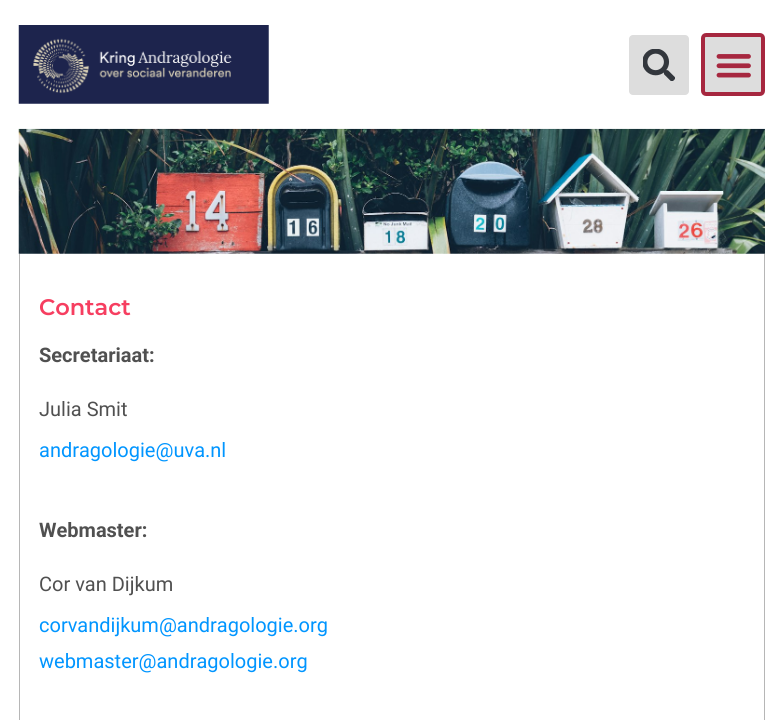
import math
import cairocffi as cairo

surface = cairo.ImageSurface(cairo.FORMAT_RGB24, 783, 720)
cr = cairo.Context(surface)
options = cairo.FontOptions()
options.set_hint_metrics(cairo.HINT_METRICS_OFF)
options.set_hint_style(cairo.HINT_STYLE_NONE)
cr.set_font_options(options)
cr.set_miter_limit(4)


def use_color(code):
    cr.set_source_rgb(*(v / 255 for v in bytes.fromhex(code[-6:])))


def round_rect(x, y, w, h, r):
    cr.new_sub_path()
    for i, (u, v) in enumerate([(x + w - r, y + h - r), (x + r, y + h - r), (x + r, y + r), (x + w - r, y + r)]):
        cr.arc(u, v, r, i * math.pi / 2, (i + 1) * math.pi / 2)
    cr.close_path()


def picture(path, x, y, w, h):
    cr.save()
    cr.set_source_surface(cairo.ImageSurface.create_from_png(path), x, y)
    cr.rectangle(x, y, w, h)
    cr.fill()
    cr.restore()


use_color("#ffffff")
cr.paint()
picture("img4.png", 18, 128, 747, 126)
cr.set_source_rgba(1, 1, 1, 0.72)
cr.rectangle(18, 128, 747, 1)
cr.fill()
picture("img1.png", 18, 25, 251, 79)
use_color("#dddddd")
round_rect(629, 35, 60, 60, 4)
cr.fill()
picture("img2.png", 643, 49, 32, 32)
round_rect(703, 35, 60, 59, 3)
cr.fill_preserve()
use_color("#a6273f")
cr.set_line_width(4)
cr.stroke()
picture("img3.png", 716, 54, 35, 24)
use_color("#b6b6b6")
cr.new_path()
cr.move_to(765, 254)
cr.line_to(765, 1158)
cr.line_to(764, 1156)
cr.line_to(764, 254)
cr.close_path()
cr.fill()
cr.new_path()
cr.move_to(19, 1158)
cr.line_to(19, 254)
cr.line_to(20, 254)
cr.line_to(20, 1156)
cr.close_path()
cr.fill()
cr.select_font_face("Montserrat SemiBold")
cr.set_font_size(22.5)
use_color("#f63e60")
cr.move_to(39, 315)
cr.show_text("Contact")
cr.select_font_face("Roboto", cairo.FONT_SLANT_NORMAL, cairo.FONT_WEIGHT_BOLD)
cr.set_font_size(20)
use_color("#505050")
cr.move_to(39, 362)
cr.show_text("Secretariaat:")
cr.select_font_face("Roboto")
cr.move_to(39, 416)
cr.show_text("Julia Smit")
use_color("#0095ff")
cr.move_to(39, 457)
cr.show_text("andragologie@uva.nl")
cr.select_font_face("Roboto", cairo.FONT_SLANT_NORMAL, cairo.FONT_WEIGHT_BOLD)
use_color("#505050")
cr.move_to(39, 537)
cr.show_text("Webmaster:")
cr.select_font_face("Roboto")
cr.move_to(39, 591)
cr.show_text("Cor van Dijkum")
use_color("#0095ff")
cr.move_to(39, 632)
cr.show_text("corvandijkum@andragologie.org")
cr.move_to(39, 668)
cr.show_text("webmaster@andragologie.org")
surface.write_to_png("result.png")
